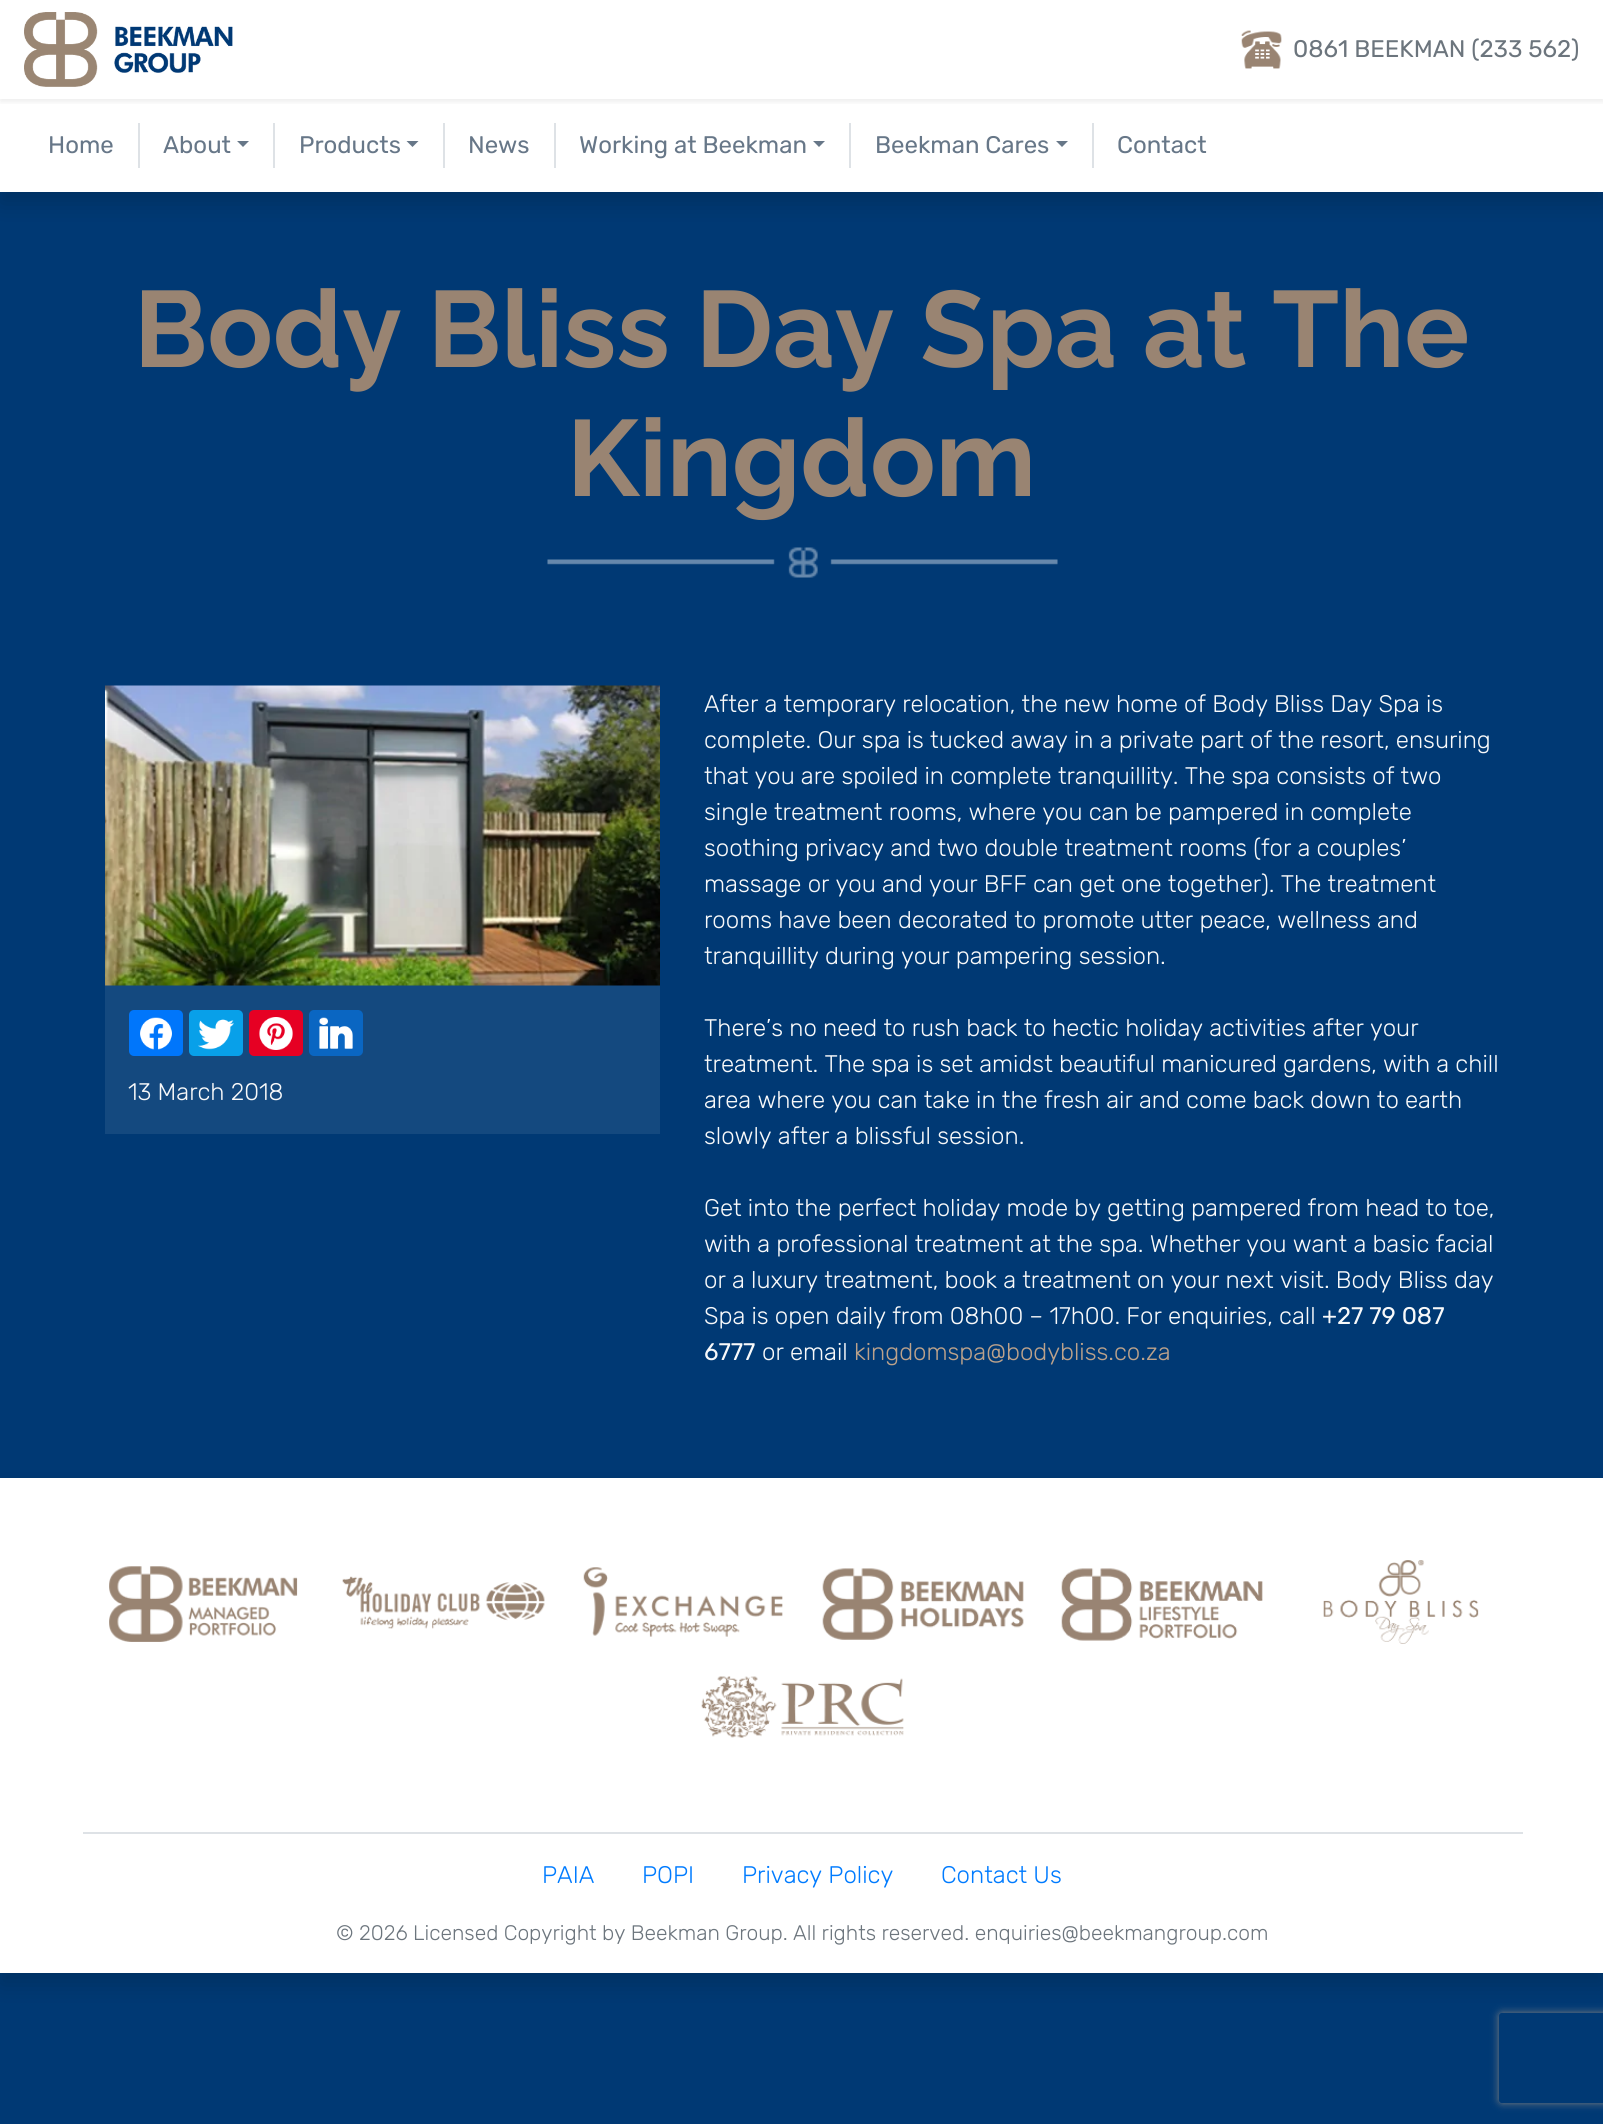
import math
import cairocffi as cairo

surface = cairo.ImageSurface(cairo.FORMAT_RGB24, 1603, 2124)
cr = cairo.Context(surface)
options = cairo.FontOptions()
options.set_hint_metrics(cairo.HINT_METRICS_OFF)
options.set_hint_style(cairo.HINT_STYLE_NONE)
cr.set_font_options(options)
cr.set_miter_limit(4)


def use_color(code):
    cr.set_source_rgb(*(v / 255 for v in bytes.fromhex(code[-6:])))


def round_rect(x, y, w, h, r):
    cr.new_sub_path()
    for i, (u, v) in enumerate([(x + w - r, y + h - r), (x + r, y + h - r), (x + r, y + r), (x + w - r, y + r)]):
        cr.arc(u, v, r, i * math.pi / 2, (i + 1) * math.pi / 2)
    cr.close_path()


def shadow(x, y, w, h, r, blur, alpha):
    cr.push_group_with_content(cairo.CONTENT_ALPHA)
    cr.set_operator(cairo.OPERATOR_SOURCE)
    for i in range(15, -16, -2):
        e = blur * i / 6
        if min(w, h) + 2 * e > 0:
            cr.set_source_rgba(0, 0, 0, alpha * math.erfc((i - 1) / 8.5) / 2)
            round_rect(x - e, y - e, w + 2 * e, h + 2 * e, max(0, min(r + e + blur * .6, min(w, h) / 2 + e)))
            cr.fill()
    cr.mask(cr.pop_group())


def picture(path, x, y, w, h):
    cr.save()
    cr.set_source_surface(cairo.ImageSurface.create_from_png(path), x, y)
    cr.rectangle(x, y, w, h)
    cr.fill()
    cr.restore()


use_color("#003974")
cr.paint()
use_color("#000000")
shadow(0, 12, 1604, 192, 0, 12, 0.15)
use_color("#ffffff")
cr.rectangle(0, 0, 1603, 192)
cr.fill()
cr.save()
cr.rectangle(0, 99, 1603, 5)
cr.clip()
use_color("#000000")
shadow(0, 3, 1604, 99, 0, 3, 0.07)
cr.restore()
picture("img1.png", 24, 12, 209, 75)
picture("img2.png", 1241, 30, 41, 39)
cr.select_font_face("Rubik")
cr.set_font_size(24)
use_color("#6c757d")
cr.move_to(1293, 57)
cr.show_text("0861 BEEKMAN (233 562)")
use_color("#dee2e6")
cr.rectangle(138, 123, 2, 45)
cr.fill()
use_color("#677788")
cr.move_to(48, 153)
cr.show_text("Home")
use_color("#dee2e6")
cr.rectangle(273, 123, 2, 45)
cr.fill()
use_color("#677788")
cr.move_to(163, 153)
cr.show_text("About")
cr.new_path()
cr.move_to(237, 141)
cr.line_to(249, 141)
cr.line_to(243, 147)
cr.close_path()
cr.fill()
use_color("#dee2e6")
cr.rectangle(443, 123, 2, 45)
cr.fill()
use_color("#677788")
cr.move_to(299, 153)
cr.show_text("Products")
cr.new_path()
cr.move_to(406.5, 141)
cr.line_to(418.5, 141)
cr.line_to(412.5, 147)
cr.close_path()
cr.fill()
use_color("#dee2e6")
cr.rectangle(554, 123, 2, 45)
cr.fill()
use_color("#677788")
cr.move_to(468, 153)
cr.show_text("News")
use_color("#dee2e6")
cr.rectangle(849, 123, 2, 45)
cr.fill()
use_color("#677788")
cr.move_to(579, 153)
cr.show_text("Working at Beekman")
cr.new_path()
cr.move_to(813, 141)
cr.line_to(825, 141)
cr.line_to(819, 147)
cr.close_path()
cr.fill()
use_color("#dee2e6")
cr.rectangle(1092, 123, 2, 45)
cr.fill()
use_color("#677788")
cr.move_to(875, 153)
cr.show_text("Beekman Cares")
cr.new_path()
cr.move_to(1056, 141)
cr.line_to(1068, 141)
cr.line_to(1062, 147)
cr.close_path()
cr.fill()
cr.move_to(1117, 153)
cr.show_text("Contact")
cr.select_font_face("Raleway", cairo.FONT_SLANT_NORMAL, cairo.FONT_WEIGHT_BOLD)
cr.set_font_size(108)
use_color("#998472")
cr.move_to(134, 367)
cr.show_text("Body Bliss Day Spa at The")
cr.move_to(567, 496)
cr.show_text("Kingdom")
picture("img3.png", 547, 547, 511, 31)
use_color("#14497f")
cr.rectangle(105, 985, 555, 149)
cr.fill()
picture("img4.png", 105, 685, 555, 301)
use_color("#0076fb")
round_rect(129, 1010, 54, 46, 5)
cr.fill()
picture("img5.png", 140, 1017, 32, 33)
use_color("#08a0e9")
round_rect(189, 1010, 54, 46, 5)
cr.fill()
picture("img6.png", 198, 1019, 36, 31)
use_color("#e60023")
round_rect(249, 1010, 54, 46, 5)
cr.fill()
picture("img7.png", 259, 1017, 34, 33)
use_color("#0a66c2")
round_rect(309, 1010, 54, 46, 5)
cr.fill()
picture("img8.png", 319, 1017, 34, 32)
cr.select_font_face("Rubik Light")
cr.set_font_size(24)
use_color("#f8f9fa")
cr.move_to(128, 1100)
cr.show_text("13 March 2018")
cr.move_to(704, 712)
cr.show_text("After a temporary relocation, the new home of Body Bliss Day Spa is")
cr.move_to(704, 748)
cr.show_text("complete. Our spa is tucked away in a private part of the resort, ensuring")
cr.move_to(704, 784)
cr.show_text("that you are spoiled in complete tranquillity. The spa consists of two")
cr.move_to(704, 820)
cr.show_text("single treatment rooms, where you can be pampered in complete")
cr.move_to(704, 856)
cr.show_text("soothing privacy and two double treatment rooms (for a couples’")
cr.move_to(704, 892)
cr.show_text("massage or you and your BFF can get one together). The treatment")
cr.move_to(704, 928)
cr.show_text("rooms have been decorated to promote utter peace, wellness and")
cr.move_to(704, 964)
cr.show_text("tranquillity during your pampering session.")
cr.move_to(704, 1036)
cr.show_text("There’s no need to rush back to hectic holiday activities after your")
cr.move_to(704, 1072)
cr.show_text("treatment. The spa is set amidst beautiful manicured gardens, with a chill")
cr.move_to(704, 1108)
cr.show_text("area where you can take in the fresh air and come back down to earth")
cr.move_to(704, 1144)
cr.show_text("slowly after a blissful session.")
cr.move_to(704, 1216)
cr.show_text("Get into the perfect holiday mode by getting pampered from head to toe,")
cr.move_to(704, 1252)
cr.show_text("with a professional treatment at the spa. Whether you want a basic facial")
cr.move_to(704, 1288)
cr.show_text("or a luxury treatment, book a treatment on your next visit. Body Bliss day")
cr.move_to(704, 1324)
cr.show_text("Spa is open daily from 08h00 – 17h00. For enquiries, call")
cr.select_font_face("Rubik")
cr.move_to(1322, 1324)
cr.show_text("+27 79 087")
cr.move_to(704, 1360)
cr.show_text("6777")
cr.select_font_face("Rubik Light")
cr.move_to(762, 1360)
cr.show_text("or email")
use_color("#bca28b")
cr.move_to(854, 1360)
cr.show_text("kingdomspa@bodybliss.co.za")
use_color("#000000")
shadow(0, 1490, 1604, 495, 0, 12, 0.15)
use_color("#ffffff")
cr.rectangle(0, 1478, 1603, 495)
cr.fill()
use_color("#dee2e6")
cr.rectangle(83, 1832, 1440, 2)
cr.fill()
picture("img9.png", 109, 1566, 189, 76)
picture("img10.png", 342, 1576, 203, 53)
picture("img11.png", 583, 1567, 200, 70)
picture("img12.png", 822, 1568, 202, 72)
picture("img13.png", 1061, 1568, 202, 73)
picture("img14.png", 1323, 1560, 156, 84)
picture("img15.png", 701, 1676, 203, 62)
use_color("#007bff")
cr.move_to(542, 1883)
cr.show_text("PAIA")
cr.move_to(642, 1883)
cr.show_text("POPI")
cr.move_to(742, 1883)
cr.show_text("Privacy Policy")
cr.move_to(941, 1883)
cr.show_text("Contact Us")
cr.set_font_size(21)
use_color("#6c757d")
cr.move_to(336, 1940)
cr.show_text("© 2026 Licensed Copyright by Beekman Group. All rights reserved. enquiries@beekmangroup.com")
cr.save()
cr.set_fill_rule(cairo.FILL_RULE_EVEN_ODD)
cr.new_path()
cr.move_to(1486, 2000)
cr.line_to(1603, 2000)
cr.line_to(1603, 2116)
cr.line_to(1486, 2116)
cr.close_path()
cr.move_to(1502, 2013)
cr.line_to(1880, 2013)
cr.curve_to(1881.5, 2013, 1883, 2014.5, 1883, 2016)
cr.line_to(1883, 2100)
cr.curve_to(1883, 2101.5, 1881.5, 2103, 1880, 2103)
cr.line_to(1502, 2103)
cr.curve_to(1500.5, 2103, 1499, 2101.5, 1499, 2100)
cr.line_to(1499, 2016)
cr.curve_to(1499, 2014.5, 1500.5, 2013, 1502, 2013)
cr.close_path()
cr.clip()
use_color("#808080")
shadow(1499, 2013, 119, 90, 3, 4, 1)
cr.restore()
surface.write_to_png("result.png")
